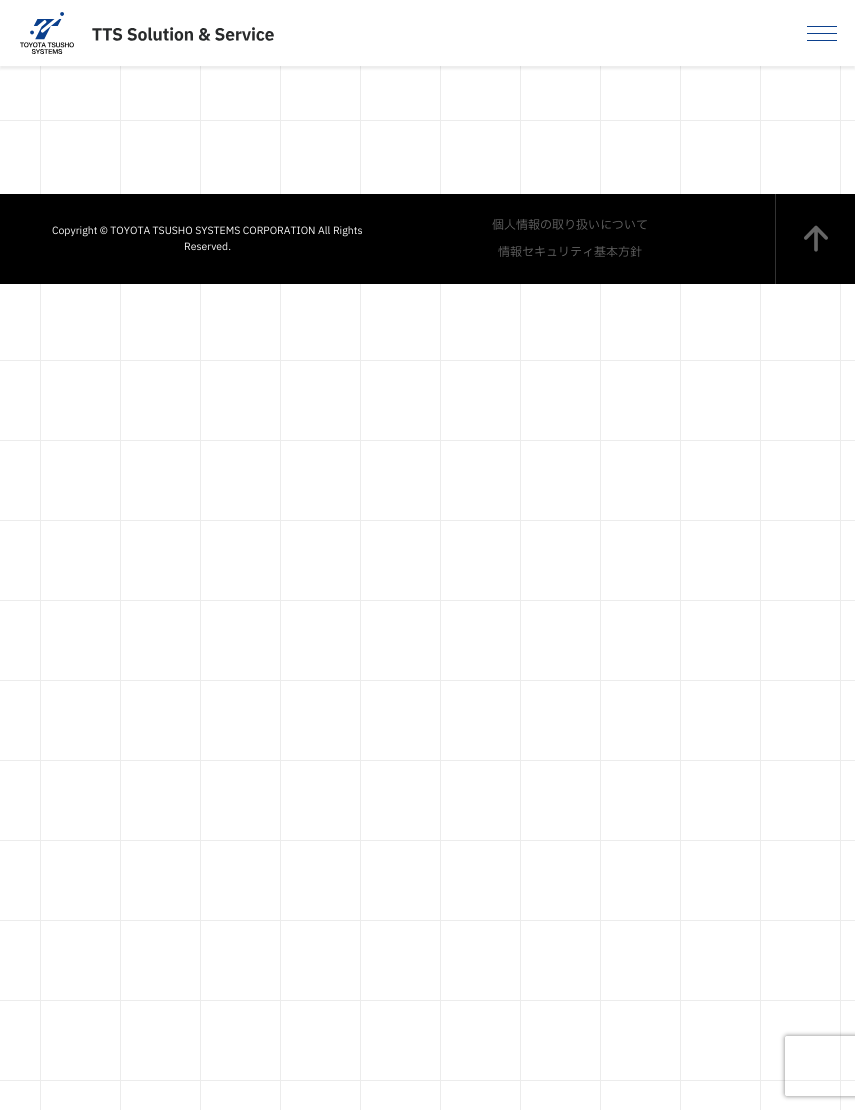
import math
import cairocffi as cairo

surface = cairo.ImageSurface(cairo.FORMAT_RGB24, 855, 1110)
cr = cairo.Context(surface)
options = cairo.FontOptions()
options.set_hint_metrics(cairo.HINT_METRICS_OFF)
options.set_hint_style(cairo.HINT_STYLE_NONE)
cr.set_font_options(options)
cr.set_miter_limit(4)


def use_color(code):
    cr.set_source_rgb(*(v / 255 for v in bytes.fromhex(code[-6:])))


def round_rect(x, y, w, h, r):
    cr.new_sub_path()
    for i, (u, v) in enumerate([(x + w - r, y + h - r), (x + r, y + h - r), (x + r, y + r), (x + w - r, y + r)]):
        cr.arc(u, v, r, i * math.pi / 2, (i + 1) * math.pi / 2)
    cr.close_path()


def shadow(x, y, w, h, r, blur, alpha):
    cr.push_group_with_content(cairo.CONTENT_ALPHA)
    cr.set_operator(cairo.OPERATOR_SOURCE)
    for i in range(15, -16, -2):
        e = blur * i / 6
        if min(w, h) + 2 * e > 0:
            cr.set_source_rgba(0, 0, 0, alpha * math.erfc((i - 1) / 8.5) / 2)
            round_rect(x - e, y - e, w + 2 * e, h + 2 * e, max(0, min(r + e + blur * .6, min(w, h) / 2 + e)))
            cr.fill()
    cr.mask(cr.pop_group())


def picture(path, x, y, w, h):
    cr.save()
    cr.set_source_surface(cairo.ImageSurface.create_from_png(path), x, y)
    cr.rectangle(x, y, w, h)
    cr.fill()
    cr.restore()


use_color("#ffffff")
cr.paint()
use_color("#ececec")
cr.rectangle(0, 120, 855, 1)
cr.fill()
cr.rectangle(0, 360, 855, 1)
cr.fill()
cr.rectangle(0, 440, 855, 1)
cr.fill()
cr.rectangle(0, 520, 855, 1)
cr.fill()
cr.rectangle(0, 600, 855, 1)
cr.fill()
cr.rectangle(0, 680, 855, 1)
cr.fill()
cr.rectangle(0, 760, 855, 1)
cr.fill()
cr.rectangle(0, 840, 855, 1)
cr.fill()
cr.rectangle(0, 920, 855, 1)
cr.fill()
cr.rectangle(0, 1000, 855, 1)
cr.fill()
cr.rectangle(0, 1080, 855, 1)
cr.fill()
cr.rectangle(40, 66, 1, 1044)
cr.fill()
cr.rectangle(120, 66, 1, 1044)
cr.fill()
cr.rectangle(200, 66, 1, 1044)
cr.fill()
cr.rectangle(280, 66, 1, 1044)
cr.fill()
cr.rectangle(360, 66, 1, 1044)
cr.fill()
cr.rectangle(440, 66, 1, 1044)
cr.fill()
cr.rectangle(520, 66, 1, 1044)
cr.fill()
cr.rectangle(600, 66, 1, 1044)
cr.fill()
cr.rectangle(680, 66, 1, 1044)
cr.fill()
cr.rectangle(760, 66, 1, 1044)
cr.fill()
cr.rectangle(840, 66, 1, 1044)
cr.fill()
use_color("#000000")
shadow(0, 3, 855, 66, 0, 1.5, 0.08)
use_color("#ffffff")
cr.rectangle(0, 1, 855, 65)
cr.fill()
picture("img1.png", 20, 12, 254, 42)
use_color("#0b408d")
cr.rectangle(807, 26, 30, 1)
cr.fill()
cr.rectangle(807, 33, 30, 1)
cr.fill()
cr.rectangle(807, 40, 30, 1)
cr.fill()
use_color("#000000")
cr.rectangle(0, 194, 855, 90)
cr.fill()
cr.select_font_face("IBM Plex Sans JP")
cr.set_font_size(10)
use_color("#ffffff")
cr.move_to(52, 234)
cr.show_text("Copyright © TOYOTA TSUSHO SYSTEMS CORPORATION All Rights")
cr.move_to(184, 250)
cr.show_text("Reserved.")
cr.set_font_size(12)
use_color("#666666")
cr.move_to(492, 229)
cr.show_text("個人情報の取り扱いについて")
cr.move_to(498, 256)
cr.show_text("情報セキュリティ基本方針")
use_color("#333333")
cr.rectangle(775, 194, 1, 90)
cr.fill()
picture("img2.png", 804, 225, 24, 27)
cr.save()
cr.set_fill_rule(cairo.FILL_RULE_EVEN_ODD)
cr.new_path()
cr.move_to(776, 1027)
cr.line_to(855, 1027)
cr.line_to(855, 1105)
cr.line_to(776, 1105)
cr.close_path()
cr.move_to(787, 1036)
cr.line_to(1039, 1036)
cr.curve_to(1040, 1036, 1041, 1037, 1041, 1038)
cr.line_to(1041, 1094)
cr.curve_to(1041, 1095, 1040, 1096, 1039, 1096)
cr.line_to(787, 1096)
cr.curve_to(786, 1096, 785, 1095, 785, 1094)
cr.line_to(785, 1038)
cr.curve_to(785, 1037, 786, 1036, 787, 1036)
cr.close_path()
cr.clip()
use_color("#808080")
shadow(785, 1036, 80, 60, 2, 2.5, 1)
cr.restore()
surface.write_to_png("result.png")
